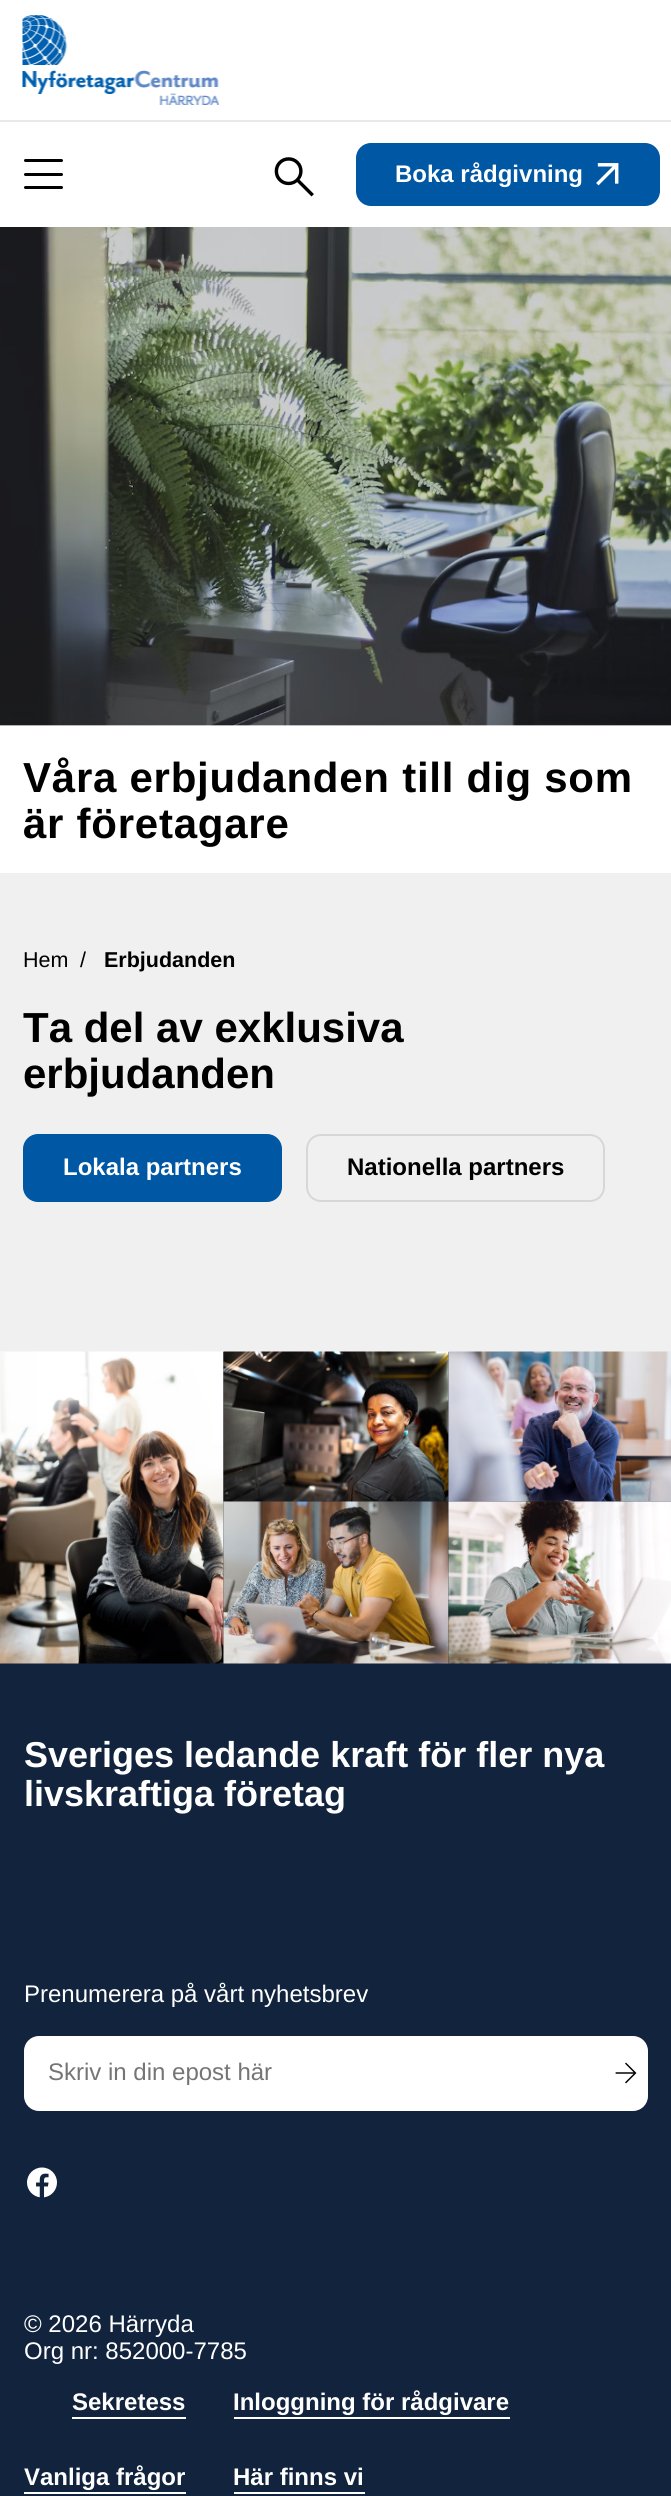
import math
import cairocffi as cairo

surface = cairo.ImageSurface(cairo.FORMAT_RGB24, 671, 2496)
cr = cairo.Context(surface)
options = cairo.FontOptions()
options.set_hint_metrics(cairo.HINT_METRICS_OFF)
options.set_hint_style(cairo.HINT_STYLE_NONE)
cr.set_font_options(options)
cr.set_miter_limit(4)


def use_color(code):
    cr.set_source_rgb(*(v / 255 for v in bytes.fromhex(code[-6:])))


def spaced_text(x, y, s, letter, word):
    cr.move_to(x, y)
    for ch in s:
        cr.show_text(ch)
        cr.rel_move_to(letter + word * (ch == ' '), 0)


def round_rect(x, y, w, h, r):
    cr.new_sub_path()
    for i, (u, v) in enumerate([(x + w - r, y + h - r), (x + r, y + h - r), (x + r, y + r), (x + w - r, y + r)]):
        cr.arc(u, v, r, i * math.pi / 2, (i + 1) * math.pi / 2)
    cr.close_path()


def picture(path, x, y, w, h):
    cr.save()
    cr.set_source_surface(cairo.ImageSurface.create_from_png(path), x, y)
    cr.rectangle(x, y, w, h)
    cr.fill()
    cr.restore()


use_color("#f0f0f0")
cr.paint()
use_color("#ffffff")
cr.rectangle(0, 0, 671, 120)
cr.fill()
picture("img1.png", 22, 15, 197, 90)
cr.rectangle(0, 122, 671, 105)
cr.fill()
use_color("#e9e9e9")
cr.rectangle(0, 120, 671, 2)
cr.fill()
use_color("#000000")
round_rect(24, 159, 39, 3, 1.5)
cr.fill()
round_rect(24, 173, 39, 3, 1.5)
cr.fill()
round_rect(24, 186, 39, 3, 1.5)
cr.fill()
picture("img2.png", 274, 157, 40, 40)
use_color("#0057a4")
round_rect(356, 143, 304, 63, 15)
cr.fill()
cr.select_font_face("Liberation Sans", cairo.FONT_SLANT_NORMAL, cairo.FONT_WEIGHT_BOLD)
cr.set_font_size(24)
use_color("#ffffff")
cr.move_to(395, 182)
cr.show_text("Boka rådgivning")
picture("img3.png", 596, 163, 23, 23)
cr.rectangle(0, 725, 671, 148)
cr.fill()
picture("img4.png", 0, 227, 671, 499)
cr.set_font_size(42)
use_color("#000000")
spaced_text(23, 792, "Våra erbjudanden till dig som", 0.75, 0)
spaced_text(23, 838, "är företagare", 0.75, 0)
cr.select_font_face("Liberation Sans")
cr.set_font_size(21.5)
cr.move_to(23, 967)
cr.show_text("Hem")
cr.move_to(80, 967)
cr.show_text("/")
cr.select_font_face("Liberation Sans", cairo.FONT_SLANT_NORMAL, cairo.FONT_WEIGHT_BOLD)
cr.move_to(104, 967)
cr.show_text("Erbjudanden")
cr.set_font_size(42)
cr.move_to(23, 1042)
cr.show_text("Ta del av exklusiva")
cr.move_to(23, 1088)
cr.show_text("erbjudanden")
use_color("#0057a4")
round_rect(23, 1134, 259, 68, 15)
cr.fill()
cr.set_font_size(24)
use_color("#ffffff")
cr.move_to(63, 1175)
cr.show_text("Lokala partners")
round_rect(307, 1135, 297, 66, 14)
use_color("#d7d7d7")
cr.stroke()
use_color("#000000")
cr.move_to(347, 1175)
cr.show_text("Nationella partners")
use_color("#12233d")
cr.rectangle(0, 1352, 671, 1144)
cr.fill()
picture("img5.png", 0, 1351, 224, 313)
picture("img6.png", 223, 1351, 226, 151)
picture("img7.png", 448, 1351, 223, 151)
picture("img8.png", 223, 1501, 226, 163)
picture("img9.png", 448, 1501, 223, 163)
cr.set_font_size(36)
use_color("#ffffff")
cr.move_to(24, 1767)
cr.show_text("Sveriges ledande kraft för fler nya")
cr.move_to(24, 1806)
cr.show_text("livskraftiga företag")
cr.select_font_face("Liberation Sans")
cr.set_font_size(24)
cr.move_to(24, 2002)
cr.show_text("Prenumerera på vårt nyhetsbrev")
round_rect(24, 2036, 624, 75, 15)
cr.fill()
use_color("#757575")
cr.move_to(48, 2080)
cr.show_text("Skriv in din epost här")
picture("img10.png", 615, 2062, 22, 22)
picture("img11.png", 27, 2167, 30, 31)
use_color("#ffffff")
cr.move_to(24, 2332)
cr.show_text("© 2026 Härryda")
cr.move_to(24, 2359)
cr.show_text("Org nr: 852000-7785")
cr.select_font_face("Liberation Sans", cairo.FONT_SLANT_NORMAL, cairo.FONT_WEIGHT_BOLD)
cr.move_to(72, 2410)
cr.show_text("Sekretess")
cr.rectangle(72, 2417, 114, 2)
cr.fill()
cr.move_to(233, 2410)
cr.show_text("Inloggning för rådgivare")
cr.rectangle(234, 2417, 276, 2)
cr.fill()
cr.move_to(24, 2485)
cr.show_text("Vanliga frågor")
cr.rectangle(24, 2492, 162, 2)
cr.fill()
cr.move_to(233, 2485)
cr.show_text("Här finns vi")
cr.rectangle(234, 2492, 131, 2)
cr.fill()
surface.write_to_png("result.png")
